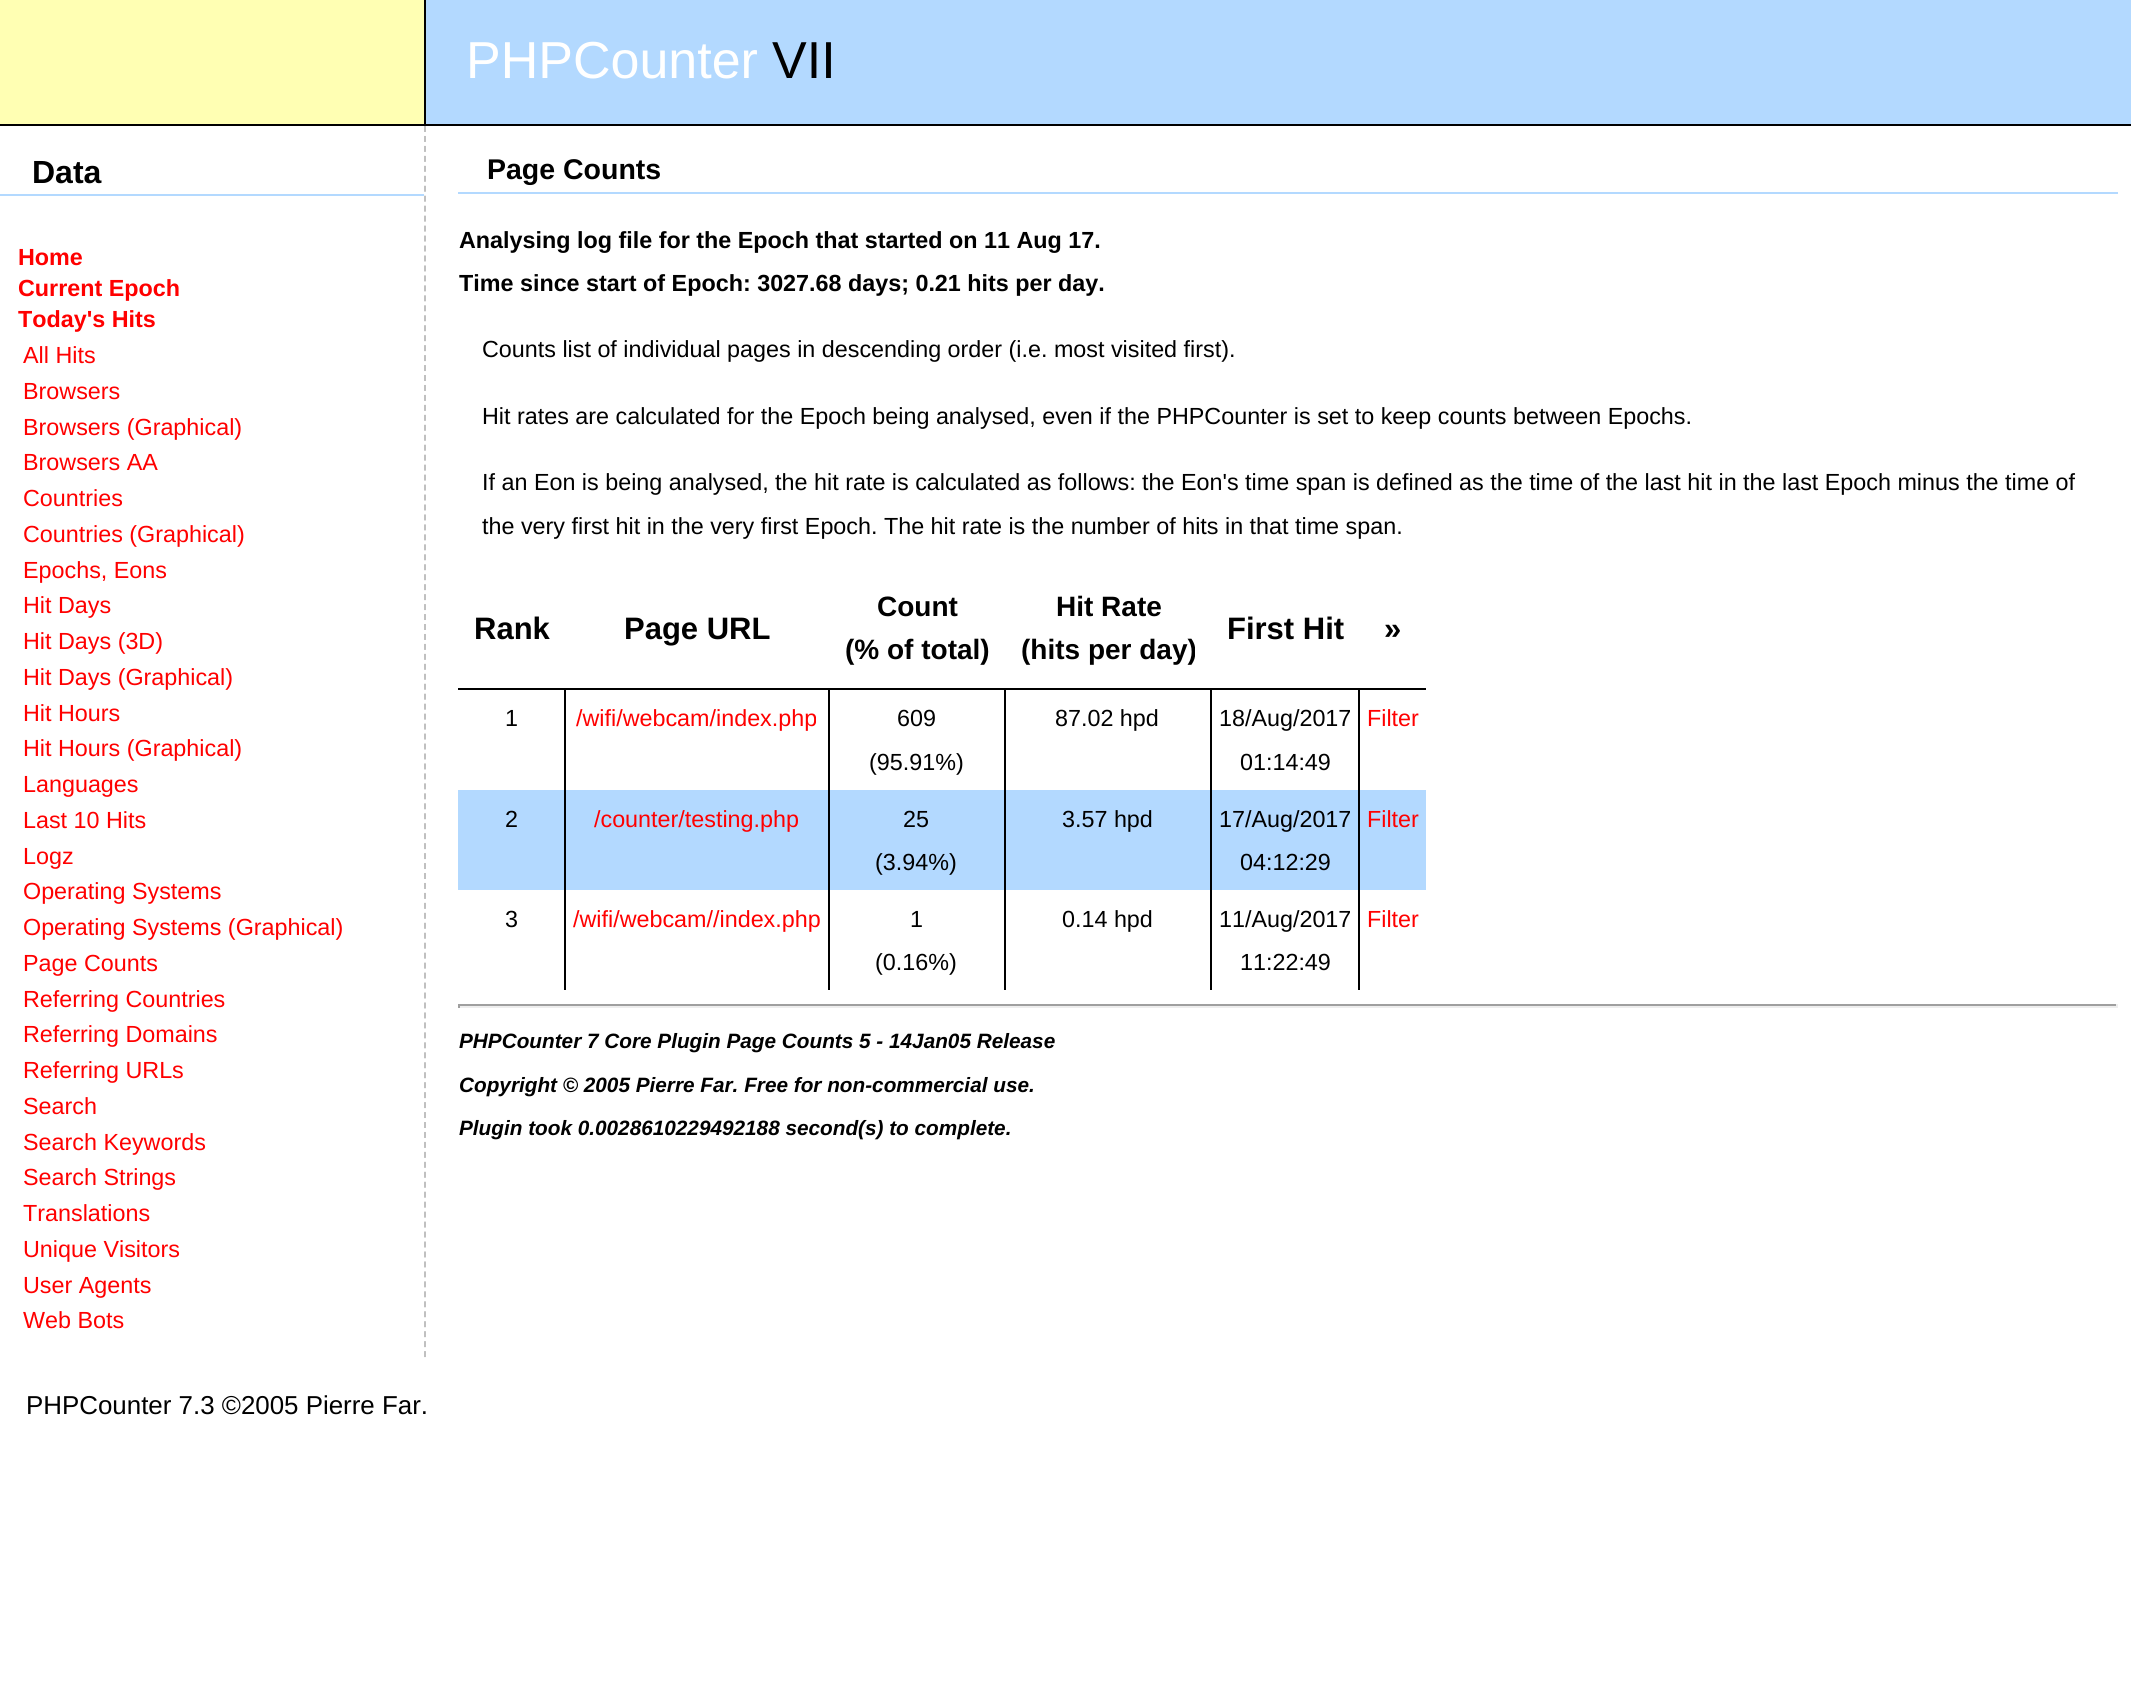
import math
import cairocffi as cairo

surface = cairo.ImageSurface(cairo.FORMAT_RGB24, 2131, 1689)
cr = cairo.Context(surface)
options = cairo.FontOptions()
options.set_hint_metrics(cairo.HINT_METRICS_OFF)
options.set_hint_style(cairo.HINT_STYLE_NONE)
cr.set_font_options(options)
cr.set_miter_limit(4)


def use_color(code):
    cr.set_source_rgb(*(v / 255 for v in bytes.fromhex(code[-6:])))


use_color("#ffffff")
cr.paint()
use_color("#ffffb3")
cr.rectangle(0, 0, 424, 124)
cr.fill()
use_color("#000000")
cr.rectangle(424, 0, 2, 126)
cr.fill()
cr.rectangle(0, 124, 2131, 2)
cr.fill()
use_color("#b3d9ff")
cr.rectangle(426, 0, 1705, 124)
cr.fill()
cr.select_font_face("Liberation Sans")
cr.set_font_size(52)
use_color("#ffffff")
cr.move_to(466, 78)
cr.show_text("PHPCounter")
use_color("#000000")
cr.move_to(772, 78)
cr.show_text("VII")
cr.new_path()
cr.move_to(425, 126)
cr.line_to(425, 1358)
use_color("#c0c0c0")
cr.set_dash([6, 3.96])
cr.stroke()
use_color("#b3d9ff")
cr.rectangle(0, 194, 424, 2)
cr.fill()
cr.select_font_face("Liberation Sans", cairo.FONT_SLANT_NORMAL, cairo.FONT_WEIGHT_BOLD)
cr.set_font_size(32)
use_color("#000000")
cr.move_to(32, 183)
cr.show_text("Data")
cr.set_font_size(23.33)
use_color("#ff0000")
cr.move_to(18, 265)
cr.show_text("Home")
cr.move_to(18, 296)
cr.show_text("Current Epoch")
cr.move_to(18, 327)
cr.show_text("Today's Hits")
cr.select_font_face("Liberation Sans")
cr.move_to(23, 363)
cr.show_text("All Hits")
cr.move_to(23, 399)
cr.show_text("Browsers")
cr.move_to(23, 435)
cr.show_text("Browsers (Graphical)")
cr.move_to(23, 470)
cr.show_text("Browsers AA")
cr.move_to(23, 506)
cr.show_text("Countries")
cr.move_to(23, 542)
cr.show_text("Countries (Graphical)")
cr.move_to(23, 578)
cr.show_text("Epochs, Eons")
cr.move_to(23, 613)
cr.show_text("Hit Days")
cr.move_to(23, 649)
cr.show_text("Hit Days (3D)")
cr.move_to(23, 685)
cr.show_text("Hit Days (Graphical)")
cr.move_to(23, 721)
cr.show_text("Hit Hours")
cr.move_to(23, 756)
cr.show_text("Hit Hours (Graphical)")
cr.move_to(23, 792)
cr.show_text("Languages")
cr.move_to(23, 828)
cr.show_text("Last 10 Hits")
cr.move_to(23, 864)
cr.show_text("Logz")
cr.move_to(23, 899)
cr.show_text("Operating Systems")
cr.move_to(23, 935)
cr.show_text("Operating Systems (Graphical)")
cr.move_to(23, 971)
cr.show_text("Page Counts")
cr.move_to(23, 1007)
cr.show_text("Referring Countries")
cr.move_to(23, 1042)
cr.show_text("Referring Domains")
cr.move_to(23, 1078)
cr.show_text("Referring URLs")
cr.move_to(23, 1114)
cr.show_text("Search")
cr.move_to(23, 1150)
cr.show_text("Search Keywords")
cr.move_to(23, 1185)
cr.show_text("Search Strings")
cr.move_to(23, 1221)
cr.show_text("Translations")
cr.move_to(23, 1257)
cr.show_text("Unique Visitors")
cr.move_to(23, 1293)
cr.show_text("User Agents")
cr.move_to(23, 1328)
cr.show_text("Web Bots")
use_color("#b3d9ff")
cr.rectangle(458, 192, 1660, 2)
cr.fill()
cr.select_font_face("Liberation Sans", cairo.FONT_SLANT_NORMAL, cairo.FONT_WEIGHT_BOLD)
cr.set_font_size(28.5)
use_color("#000000")
cr.move_to(487, 179)
cr.show_text("Page Counts")
cr.set_font_size(23.33)
cr.move_to(459, 248)
cr.show_text("Analysing log file for the Epoch that started on 11 Aug 17.")
cr.move_to(459, 291)
cr.show_text("Time since start of Epoch: 3027.68 days; 0.21 hits per day.")
cr.select_font_face("Liberation Sans")
cr.move_to(482, 357)
cr.show_text("Counts list of individual pages in descending order (i.e. most visited first).")
cr.move_to(482, 424)
cr.show_text("Hit rates are calculated for the Epoch being analysed, even if the PHPCounter is set to keep counts between Epochs.")
cr.move_to(482, 490)
cr.show_text("If an Eon is being analysed, the hit rate is calculated as follows: the Eon's time span is defined as the time of the last hit in the last Epoch minus the time of")
cr.move_to(482, 534)
cr.show_text("the very first hit in the very first Epoch. The hit rate is the number of hits in that time span.")
cr.rectangle(458, 688, 968, 2)
cr.fill()
cr.select_font_face("Liberation Sans", cairo.FONT_SLANT_NORMAL, cairo.FONT_WEIGHT_BOLD)
cr.set_font_size(31)
cr.move_to(474, 639)
cr.show_text("Rank")
cr.move_to(624, 639)
cr.show_text("Page URL")
cr.set_font_size(28)
cr.move_to(877, 616)
cr.show_text("Count")
cr.move_to(845, 659)
cr.show_text("(% of total)")
cr.move_to(1056, 616)
cr.show_text("Hit Rate")
cr.move_to(1021, 659)
cr.show_text("(hits per day)")
cr.set_font_size(31)
cr.move_to(1227, 639)
cr.show_text("First Hit")
cr.move_to(1384, 639)
cr.show_text("»")
cr.rectangle(564, 690, 2, 100)
cr.fill()
cr.select_font_face("Liberation Sans")
cr.set_font_size(23.33)
cr.move_to(505, 726)
cr.show_text("1")
cr.rectangle(828, 690, 2, 100)
cr.fill()
use_color("#ff0000")
cr.move_to(576, 726)
cr.show_text("/wifi/webcam/index.php")
use_color("#000000")
cr.rectangle(1004, 690, 2, 100)
cr.fill()
cr.move_to(897, 726)
cr.show_text("609")
cr.move_to(869, 770)
cr.show_text("(95.91%)")
cr.rectangle(1210, 690, 2, 100)
cr.fill()
cr.move_to(1055, 726)
cr.show_text("87.02 hpd")
cr.rectangle(1358, 690, 2, 100)
cr.fill()
cr.move_to(1219, 726)
cr.show_text("18/Aug/2017")
cr.move_to(1240, 770)
cr.show_text("01:14:49")
use_color("#ff0000")
cr.move_to(1367, 726)
cr.show_text("Filter")
use_color("#b3d9ff")
cr.rectangle(458, 790, 968, 100)
cr.fill()
use_color("#000000")
cr.rectangle(564, 790, 2, 200)
cr.fill()
cr.move_to(505, 827)
cr.show_text("2")
cr.rectangle(828, 790, 2, 200)
cr.fill()
use_color("#ff0000")
cr.move_to(594, 827)
cr.show_text("/counter/testing.php")
use_color("#000000")
cr.rectangle(1004, 790, 2, 200)
cr.fill()
cr.move_to(903, 827)
cr.show_text("25")
cr.move_to(875, 870)
cr.show_text("(3.94%)")
cr.rectangle(1210, 790, 2, 200)
cr.fill()
cr.move_to(1062, 827)
cr.show_text("3.57 hpd")
cr.rectangle(1358, 790, 2, 200)
cr.fill()
cr.move_to(1219, 827)
cr.show_text("17/Aug/2017")
cr.move_to(1240, 870)
cr.show_text("04:12:29")
use_color("#ff0000")
cr.move_to(1367, 827)
cr.show_text("Filter")
use_color("#000000")
cr.move_to(505, 927)
cr.show_text("3")
use_color("#ff0000")
cr.move_to(573, 927)
cr.show_text("/wifi/webcam//index.php")
use_color("#000000")
cr.move_to(910, 927)
cr.show_text("1")
cr.move_to(875, 970)
cr.show_text("(0.16%)")
cr.move_to(1062, 927)
cr.show_text("0.14 hpd")
cr.move_to(1219, 927)
cr.show_text("11/Aug/2017")
cr.move_to(1240, 970)
cr.show_text("11:22:49")
use_color("#ff0000")
cr.move_to(1367, 927)
cr.show_text("Filter")
use_color("#9f9f9f")
cr.rectangle(458, 1004, 1660, 2)
cr.fill()
use_color("#eeeeee")
cr.rectangle(2116, 1004, 2, 4)
cr.fill()
cr.rectangle(458, 1006, 1660, 2)
cr.fill()
use_color("#9f9f9f")
cr.rectangle(458, 1004, 2, 4)
cr.fill()
cr.select_font_face("Liberation Sans", cairo.FONT_SLANT_ITALIC, cairo.FONT_WEIGHT_BOLD)
cr.set_font_size(20.75)
use_color("#000000")
cr.move_to(459, 1048)
cr.show_text("PHPCounter 7 Core Plugin Page Counts 5 - 14Jan05 Release")
cr.move_to(459, 1092)
cr.show_text("Copyright © 2005 Pierre Far. Free for non-commercial use.")
cr.move_to(459, 1135)
cr.show_text("Plugin took 0.0028610229492188 second(s) to complete.")
cr.select_font_face("Liberation Sans")
cr.set_font_size(25.9)
cr.move_to(26, 1414)
cr.show_text("PHPCounter 7.3 ©2005 Pierre Far.")
surface.write_to_png("result.png")
